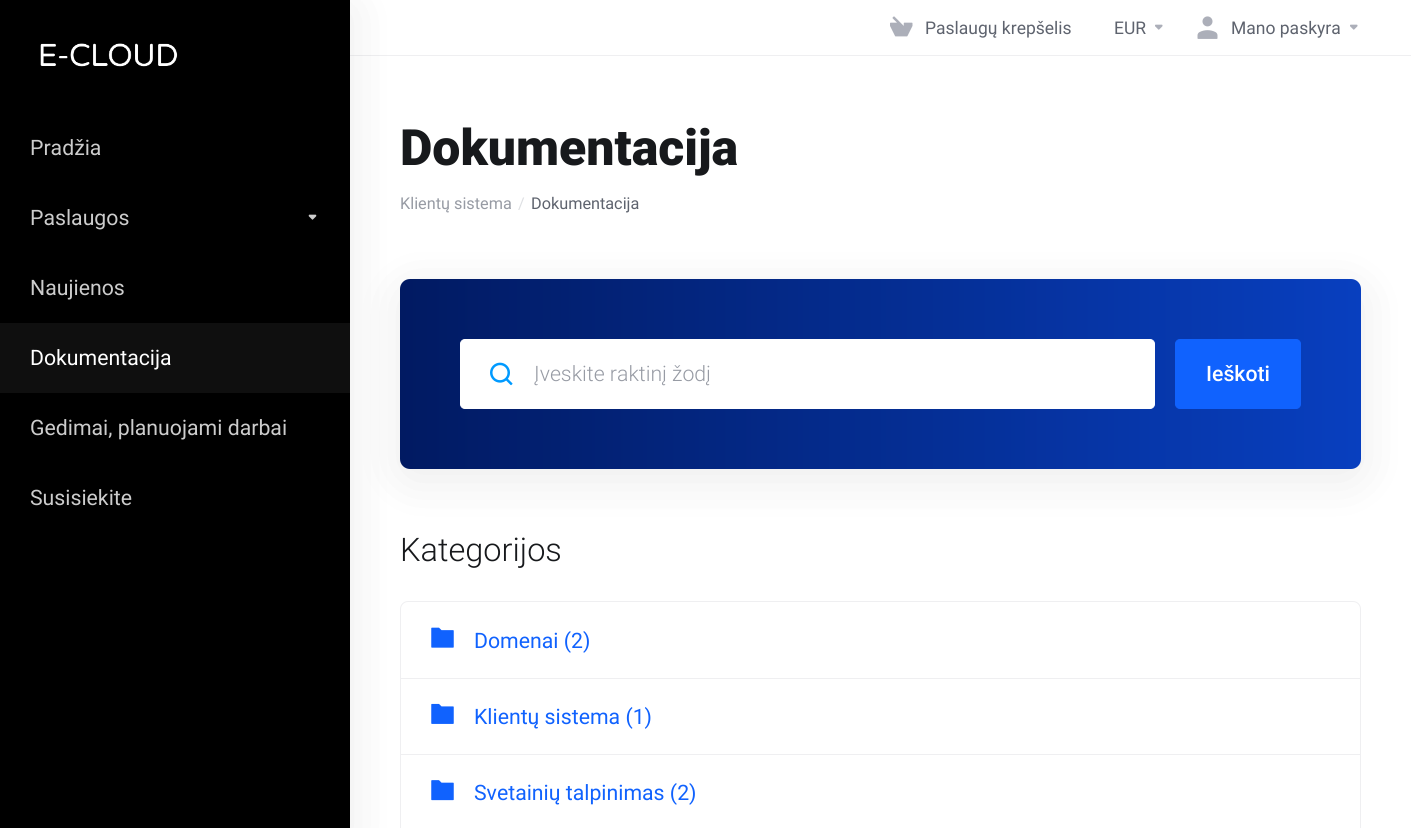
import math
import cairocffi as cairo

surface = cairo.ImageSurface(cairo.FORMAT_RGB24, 1411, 828)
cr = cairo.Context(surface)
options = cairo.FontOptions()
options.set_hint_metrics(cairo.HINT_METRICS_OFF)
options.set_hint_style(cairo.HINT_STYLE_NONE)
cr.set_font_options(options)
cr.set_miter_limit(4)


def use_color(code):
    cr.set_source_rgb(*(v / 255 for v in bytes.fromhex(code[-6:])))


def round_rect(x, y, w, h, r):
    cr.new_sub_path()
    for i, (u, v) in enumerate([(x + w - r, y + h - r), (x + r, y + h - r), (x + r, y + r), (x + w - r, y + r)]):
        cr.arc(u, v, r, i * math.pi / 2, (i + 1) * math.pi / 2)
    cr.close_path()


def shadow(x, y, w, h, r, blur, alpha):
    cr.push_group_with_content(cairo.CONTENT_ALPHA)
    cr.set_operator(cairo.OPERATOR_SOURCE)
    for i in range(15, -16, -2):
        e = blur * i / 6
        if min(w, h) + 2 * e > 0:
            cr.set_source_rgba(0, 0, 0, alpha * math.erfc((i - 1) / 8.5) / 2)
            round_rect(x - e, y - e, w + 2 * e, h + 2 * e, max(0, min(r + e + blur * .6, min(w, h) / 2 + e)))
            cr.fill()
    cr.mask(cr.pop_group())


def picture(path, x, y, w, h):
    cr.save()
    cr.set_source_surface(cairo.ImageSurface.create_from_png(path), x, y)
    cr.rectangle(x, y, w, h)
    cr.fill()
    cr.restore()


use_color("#ffffff")
cr.paint()
use_color("#efeff1")
cr.rectangle(350, 55, 1061, 1)
cr.fill()
use_color("#000000")
shadow(400, 289, 961, 190, 10, 25, 0.08)
gradient = cairo.LinearGradient(400, 374, 1361, 374)
gradient.add_color_stop_rgba(0, 0.004, 0.102, 0.384, 1)
gradient.add_color_stop_rgba(1, 0.031, 0.247, 0.749, 1)
cr.set_source(gradient)
round_rect(400, 279, 961, 190, 10)
cr.fill()
round_rect(400.5, 601.5, 960, 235, 7.5)
use_color("#efeff1")
cr.set_line_width(1)
cr.stroke()
cr.rectangle(401, 678, 959, 1)
cr.fill()
cr.rectangle(401, 754, 959, 1)
cr.fill()
use_color("#000000")
shadow(0, 10, 350, 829, 0, 25, 0.08)
use_color("#000000")
cr.rectangle(0, 0, 350, 828)
cr.fill()
picture("img1.png", 40, 43, 138, 24)
cr.select_font_face("Roboto")
cr.set_font_size(21.25)
use_color("#cccccc")
cr.move_to(30, 155)
cr.show_text("Pradžia")
cr.move_to(30, 225)
cr.show_text("Paslaugos")
picture("img2.png", 308, 214, 9, 6)
cr.move_to(30, 295)
cr.show_text("Naujienos")
use_color("#0f0f0f")
cr.rectangle(0, 323, 350, 70)
cr.fill()
use_color("#ffffff")
cr.move_to(30, 365)
cr.show_text("Dokumentacija")
use_color("#cccccc")
cr.move_to(30, 435)
cr.show_text("Gedimai, planuojami darbai")
cr.move_to(30, 505)
cr.show_text("Susisiekite")
picture("img3.png", 890, 16, 23, 21)
cr.set_font_size(17.5)
use_color("#5e636e")
cr.move_to(925, 34)
cr.show_text("Paslaugų krepšelis")
cr.move_to(1114, 34)
cr.show_text("EUR")
picture("img4.png", 1155, 24, 8, 6)
picture("img5.png", 1197, 16, 21, 23)
cr.move_to(1231, 34)
cr.show_text("Mano paskyra")
picture("img4.png", 1350, 24, 8, 6)
cr.select_font_face("Roboto Black")
cr.set_font_size(50)
use_color("#17191c")
cr.move_to(400, 165)
cr.show_text("Dokumentacija")
cr.select_font_face("Roboto")
cr.set_font_size(16.25)
use_color("#979ba4")
cr.move_to(400, 209)
cr.show_text("Klientų sistema")
use_color("#dee0e3")
cr.move_to(518, 209)
cr.show_text("/")
use_color("#5e636e")
cr.move_to(531, 209)
cr.show_text("Dokumentacija")
use_color("#ffffff")
round_rect(460.5, 339.5, 694, 69, 4.5)
cr.fill_preserve()
cr.stroke()
picture("img6.png", 490, 362, 23, 24)
cr.select_font_face("Roboto Light")
cr.set_font_size(21.25)
use_color("#979ba4")
cr.move_to(534, 381)
cr.show_text("Įveskite raktinį žodį")
use_color("#1062fe")
round_rect(1175.5, 339.5, 125, 69, 4.5)
cr.fill_preserve()
cr.stroke()
cr.select_font_face("Roboto Medium")
use_color("#ffffff")
cr.move_to(1206, 381)
cr.show_text("Ieškoti")
cr.select_font_face("Roboto Light")
cr.set_font_size(32.5)
use_color("#17191c")
cr.move_to(400, 561)
cr.show_text("Kategorijos")
picture("img7.png", 431, 627, 23, 21)
cr.select_font_face("Roboto")
cr.set_font_size(21.25)
use_color("#1062fe")
cr.move_to(474, 648)
cr.show_text("Domenai (2)")
picture("img8.png", 431, 703, 23, 21)
cr.move_to(474, 724)
cr.show_text("Klientų sistema (1)")
picture("img9.png", 431, 780, 23, 21)
cr.move_to(474, 800)
cr.show_text("Svetainių talpinimas (2)")
surface.write_to_png("result.png")
